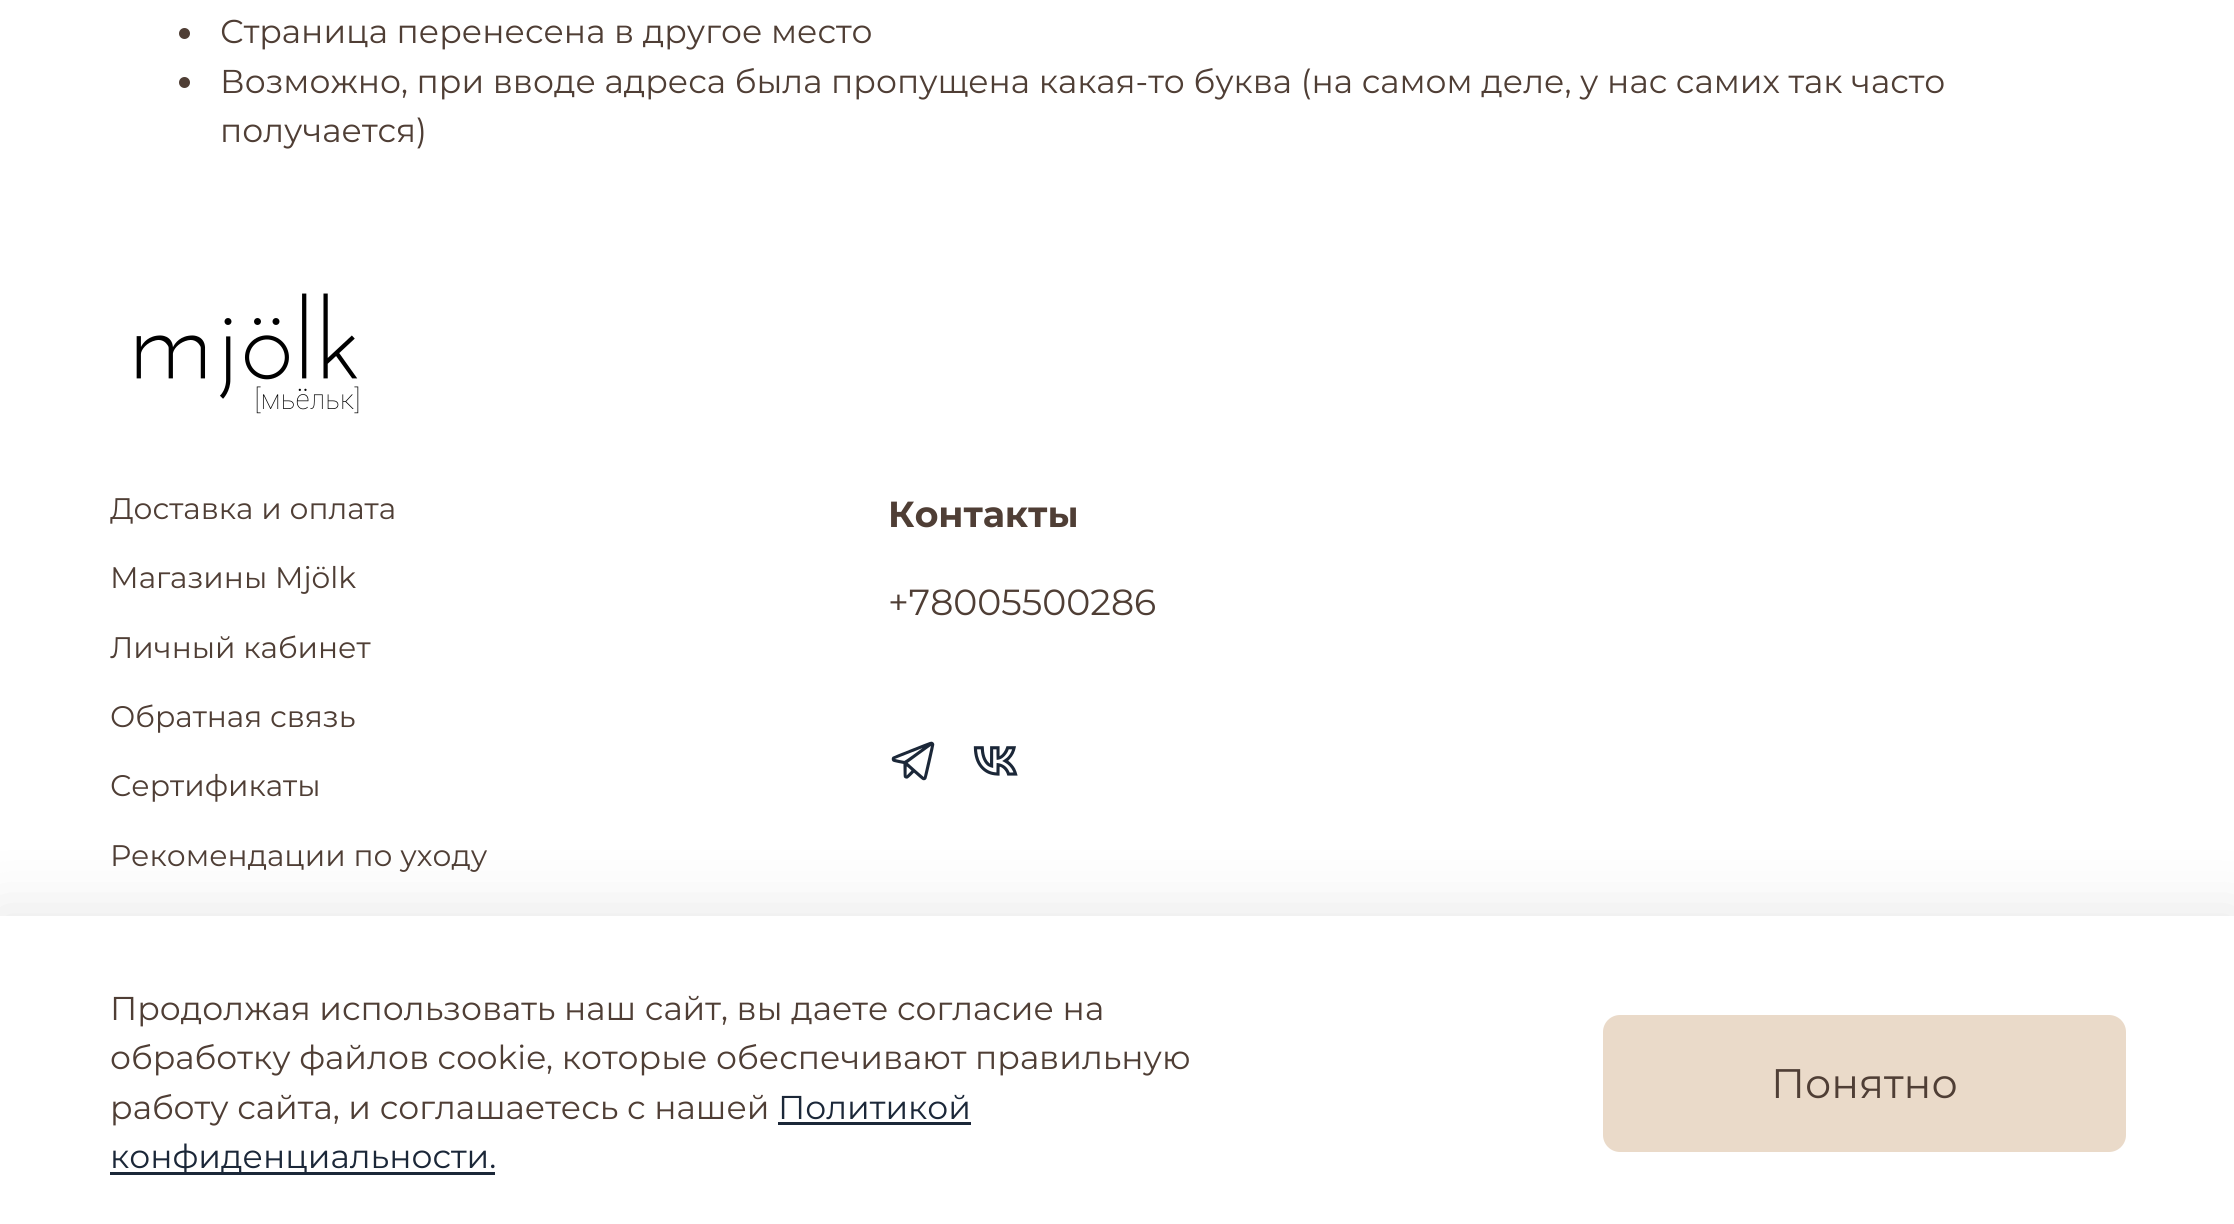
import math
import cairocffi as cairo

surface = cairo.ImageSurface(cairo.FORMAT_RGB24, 2234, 1224)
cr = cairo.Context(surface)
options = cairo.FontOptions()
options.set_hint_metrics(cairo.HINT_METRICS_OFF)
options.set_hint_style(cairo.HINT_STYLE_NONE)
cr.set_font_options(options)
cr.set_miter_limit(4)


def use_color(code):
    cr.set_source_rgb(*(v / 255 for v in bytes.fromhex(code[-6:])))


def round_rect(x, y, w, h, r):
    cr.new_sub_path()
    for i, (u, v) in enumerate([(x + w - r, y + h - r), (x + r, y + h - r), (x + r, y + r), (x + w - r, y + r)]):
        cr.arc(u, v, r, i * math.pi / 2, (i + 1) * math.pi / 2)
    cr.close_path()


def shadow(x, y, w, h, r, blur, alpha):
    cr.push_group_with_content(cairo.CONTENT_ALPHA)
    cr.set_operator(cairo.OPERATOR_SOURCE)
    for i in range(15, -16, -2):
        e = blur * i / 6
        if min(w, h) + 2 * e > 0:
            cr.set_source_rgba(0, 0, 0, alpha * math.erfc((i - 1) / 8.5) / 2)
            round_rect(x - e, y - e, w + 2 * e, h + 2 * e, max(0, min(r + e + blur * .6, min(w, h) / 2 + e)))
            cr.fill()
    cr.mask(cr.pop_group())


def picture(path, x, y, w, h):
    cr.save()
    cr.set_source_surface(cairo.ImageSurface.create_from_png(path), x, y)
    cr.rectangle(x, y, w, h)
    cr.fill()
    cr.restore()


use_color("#ffffff")
cr.paint()
use_color("#4f3e35")
cr.arc(184.5, 33.5, 5.5, 0, 2 * math.pi)
cr.fill()
cr.select_font_face("Montserrat")
cr.set_font_size(33)
cr.move_to(220, 43)
cr.show_text("Страница перенесена в другое место")
cr.new_path()
cr.arc(184.5, 82.5, 5.5, 0, 2 * math.pi)
cr.fill()
cr.move_to(220, 93)
cr.show_text("Возможно, при вводе адреса была пропущена какая-то буква (на самом деле, у нас самих так часто")
cr.move_to(220, 142)
cr.show_text("получается)")
picture("img1.png", 136, 293, 223, 121)
cr.set_font_size(29.75)
cr.move_to(110, 519)
cr.show_text("Доставка и оплата")
cr.move_to(110, 588)
cr.show_text("Магазины Mjölk")
cr.move_to(110, 658)
cr.show_text("Личный кабинет")
cr.move_to(110, 727)
cr.show_text("Обратная связь")
cr.move_to(110, 796)
cr.show_text("Сертификаты")
cr.move_to(110, 866)
cr.show_text("Рекомендации по уходу")
cr.select_font_face("Montserrat", cairo.FONT_SLANT_NORMAL, cairo.FONT_WEIGHT_BOLD)
cr.set_font_size(36.25)
cr.move_to(888, 527)
cr.show_text("Контакты")
cr.select_font_face("Montserrat")
cr.move_to(888, 615)
cr.show_text("+78005500286")
picture("img2.png", 891, 741, 44, 40)
picture("img3.png", 973, 746, 45, 30)
use_color("#000000")
shadow(-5, 908, 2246, 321, 0, 31.5, 0.09)
use_color("#ffffff")
cr.rectangle(0, 916, 2234, 308)
cr.fill()
cr.set_font_size(33)
use_color("#4f3e35")
cr.move_to(110, 1020)
cr.show_text("Продолжая использовать наш сайт, вы даете согласие на")
cr.move_to(110, 1069)
cr.show_text("обработку файлов cookie, которые обеспечивают правильную")
cr.move_to(110, 1119)
cr.show_text("работу сайта, и соглашаетесь с нашей")
use_color("#1b2738")
cr.move_to(778, 1119)
cr.show_text("Политикой")
cr.rectangle(778, 1122, 193, 3)
cr.fill()
cr.rectangle(110, 1172, 385, 3)
cr.fill()
cr.move_to(110, 1168)
cr.show_text("конфиденциальности.")
use_color("#eadac9")
round_rect(1603, 1015, 523, 137, 17)
cr.fill()
cr.set_font_size(41.25)
use_color("#4f3e35")
cr.move_to(1771, 1098)
cr.show_text("Понятно")
surface.write_to_png("result.png")
